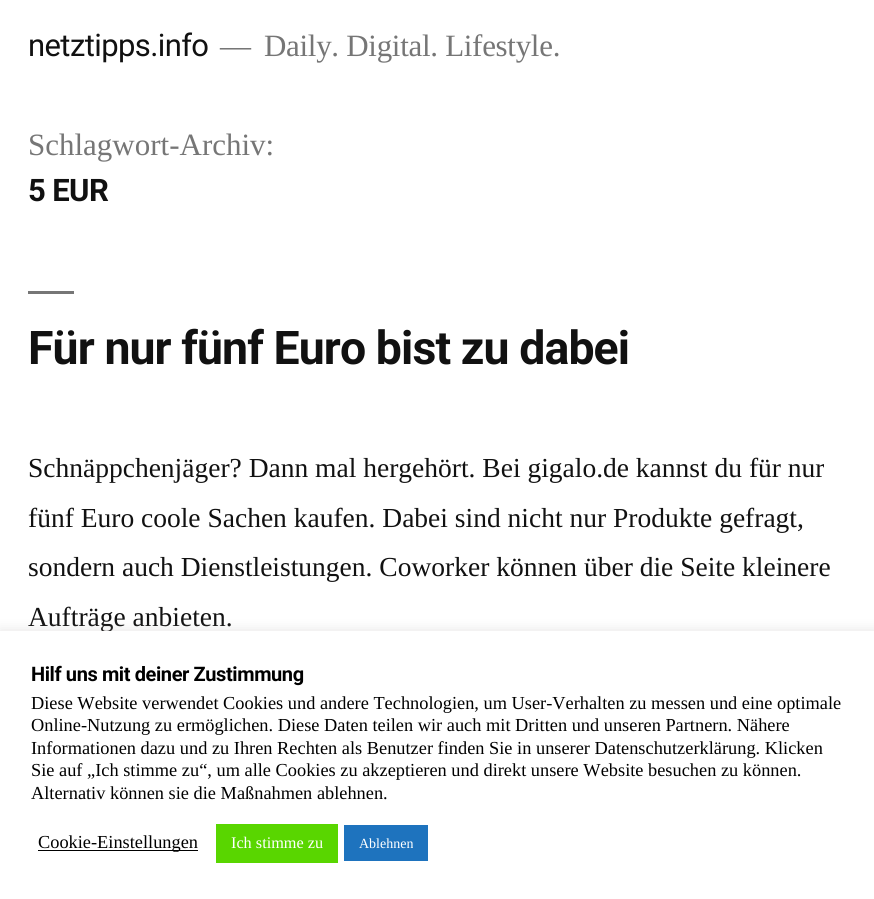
import math
import cairocffi as cairo

surface = cairo.ImageSurface(cairo.FORMAT_RGB24, 874, 899)
cr = cairo.Context(surface)
options = cairo.FontOptions()
options.set_hint_metrics(cairo.HINT_METRICS_OFF)
options.set_hint_style(cairo.HINT_STYLE_NONE)
cr.set_font_options(options)
cr.set_miter_limit(4)


def use_color(code):
    cr.set_source_rgb(*(v / 255 for v in bytes.fromhex(code[-6:])))


def spaced_text(x, y, s, letter, word):
    cr.move_to(x, y)
    for ch in s:
        cr.show_text(ch)
        cr.rel_move_to(letter + word * (ch == ' '), 0)


def round_rect(x, y, w, h, r):
    cr.new_sub_path()
    for i, (u, v) in enumerate([(x + w - r, y + h - r), (x + r, y + h - r), (x + r, y + r), (x + w - r, y + r)]):
        cr.arc(u, v, r, i * math.pi / 2, (i + 1) * math.pi / 2)
    cr.close_path()


def shadow(x, y, w, h, r, blur, alpha):
    cr.push_group_with_content(cairo.CONTENT_ALPHA)
    cr.set_operator(cairo.OPERATOR_SOURCE)
    for i in range(15, -16, -2):
        e = blur * i / 6
        if min(w, h) + 2 * e > 0:
            cr.set_source_rgba(0, 0, 0, alpha * math.erfc((i - 1) / 8.5) / 2)
            round_rect(x - e, y - e, w + 2 * e, h + 2 * e, max(0, min(r + e + blur * .6, min(w, h) / 2 + e)))
            cr.fill()
    cr.mask(cr.pop_group())


use_color("#ffffff")
cr.paint()
cr.select_font_face("Roboto")
cr.set_font_size(31)
use_color("#111111")
spaced_text(28, 56, "netztipps.info", -0.6, 0)
cr.select_font_face("Liberation Serif")
use_color("#767676")
spaced_text(220, 56, "—", -0.3, 0)
spaced_text(264, 56, "Daily. Digital. Lifestyle.", -0.3, 0)
cr.move_to(28, 155)
cr.show_text("Schlagwort-Archiv:")
cr.select_font_face("Roboto", cairo.FONT_SLANT_NORMAL, cairo.FONT_WEIGHT_BOLD)
use_color("#111111")
spaced_text(28, 201, "5 EUR", -0.6, 0)
use_color("#767676")
cr.rectangle(28, 291, 46, 3)
cr.fill()
cr.set_font_size(46.4)
use_color("#111111")
spaced_text(28, 364, "Für nur fünf Euro bist zu dabei", -0.9, 0)
cr.select_font_face("Liberation Serif")
cr.set_font_size(27.5)
cr.move_to(28, 477)
cr.show_text("Schnäppchenjäger? Dann mal hergehört. Bei gigalo.de kannst du für nur")
cr.move_to(28, 527)
cr.show_text("fünf Euro coole Sachen kaufen. Dabei sind nicht nur Produkte gefragt,")
cr.move_to(28, 576)
cr.show_text("sondern auch Dienstleistungen. Coworker können über die Seite kleinere")
cr.move_to(28, 626)
cr.show_text("Aufträge anbieten.")
use_color("#acabab")
shadow(0, 630, 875, 269, 0, 6, 0.3)
use_color("#ffffff")
cr.rectangle(0, 631, 874, 268)
cr.fill()
cr.select_font_face("Roboto", cairo.FONT_SLANT_NORMAL, cairo.FONT_WEIGHT_BOLD)
cr.set_font_size(20)
use_color("#000000")
spaced_text(31, 681, "Hilf uns mit deiner Zustimmung", -0.4, 0)
cr.select_font_face("Liberation Serif")
cr.set_font_size(18.35)
cr.move_to(31, 709)
cr.show_text("Diese Website verwendet Cookies und andere Technologien, um User-Verhalten zu messen und eine optimale")
cr.move_to(31, 731)
cr.show_text("Online-Nutzung zu ermöglichen. Diese Daten teilen wir auch mit Dritten und unseren Partnern. Nähere")
cr.move_to(31, 754)
cr.show_text("Informationen dazu und zu Ihren Rechten als Benutzer finden Sie in unserer Datenschutzerklärung. Klicken")
cr.move_to(31, 776)
cr.show_text("Sie auf „Ich stimme zu“, um alle Cookies zu akzeptieren und direkt unsere Website besuchen zu können.")
cr.move_to(31, 799)
cr.show_text("Alternativ können sie die Maßnahmen ablehnen.")
cr.rectangle(38, 850, 160, 1)
cr.fill()
cr.move_to(38, 848)
cr.show_text("Cookie-Einstellungen")
use_color("#59d600")
cr.rectangle(216, 824, 122, 39)
cr.fill()
cr.set_font_size(16.25)
use_color("#ffffff")
cr.move_to(231, 848)
cr.show_text("Ich stimme zu")
use_color("#1e73be")
cr.rectangle(344, 825, 84, 36)
cr.fill()
cr.set_font_size(14)
use_color("#ffffff")
cr.move_to(359, 848)
cr.show_text("Ablehnen")
surface.write_to_png("result.png")
